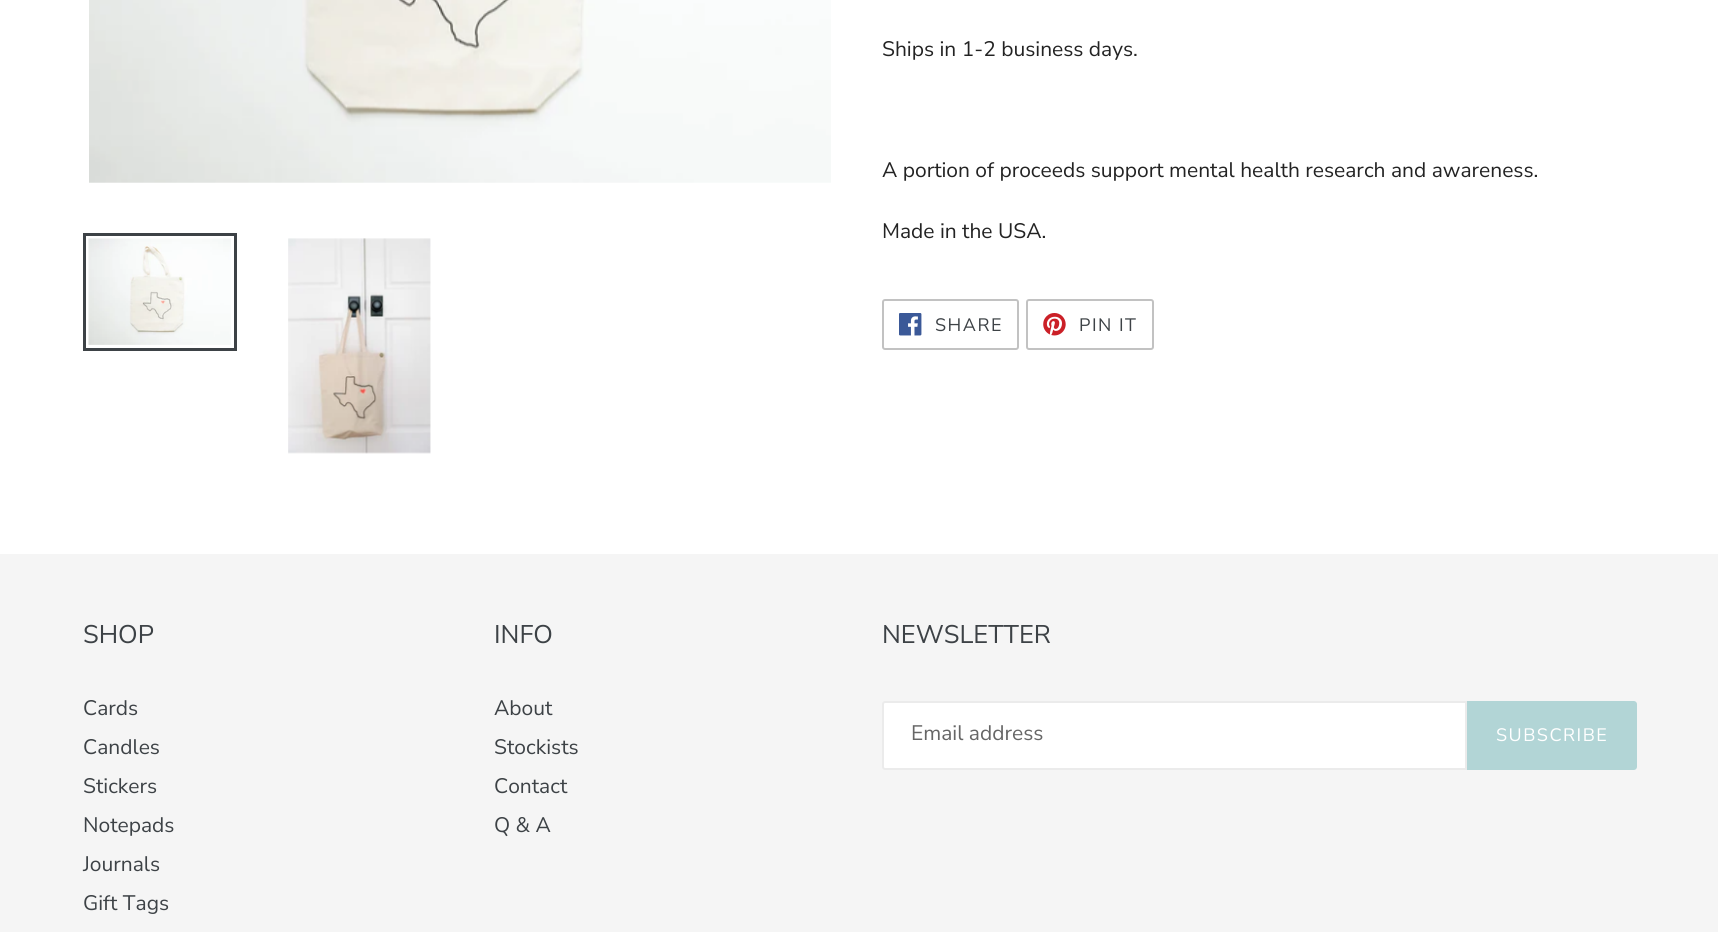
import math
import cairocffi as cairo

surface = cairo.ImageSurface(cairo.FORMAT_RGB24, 1718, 932)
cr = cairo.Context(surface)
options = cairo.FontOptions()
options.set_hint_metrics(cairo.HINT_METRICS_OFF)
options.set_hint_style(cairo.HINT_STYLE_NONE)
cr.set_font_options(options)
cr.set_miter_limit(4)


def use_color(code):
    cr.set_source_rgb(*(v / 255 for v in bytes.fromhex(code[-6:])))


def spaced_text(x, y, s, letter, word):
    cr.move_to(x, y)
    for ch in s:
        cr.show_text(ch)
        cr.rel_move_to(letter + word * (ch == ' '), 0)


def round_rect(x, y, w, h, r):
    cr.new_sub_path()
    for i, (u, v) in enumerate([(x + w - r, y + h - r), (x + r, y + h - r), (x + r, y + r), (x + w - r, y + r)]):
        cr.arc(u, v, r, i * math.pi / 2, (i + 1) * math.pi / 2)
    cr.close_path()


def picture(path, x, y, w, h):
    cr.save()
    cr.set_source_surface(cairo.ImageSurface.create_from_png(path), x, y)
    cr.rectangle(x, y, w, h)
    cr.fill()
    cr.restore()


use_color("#ffffff")
cr.paint()
picture("img1.png", 89, 0, 742, 183)
cr.rectangle(84.5, 234.5, 151, 115)
use_color("#3d4246")
cr.set_line_width(3)
cr.stroke()
picture("img2.png", 88, 238, 143, 107)
picture("img3.png", 288, 238, 143, 216)
cr.select_font_face("Nunito Sans")
cr.set_font_size(21)
use_color("#232323")
cr.move_to(882, 56)
cr.show_text("Ships in 1-2 business days.")
cr.move_to(882, 177)
cr.show_text("A portion of proceeds support mental health research and awareness.")
cr.move_to(882, 238)
cr.show_text("Made in the USA.")
round_rect(883, 300, 135, 49, 2)
use_color("#c2c2c2")
cr.set_line_width(2)
cr.stroke()
picture("img4.png", 899, 313, 23, 23)
cr.set_font_size(18)
use_color("#3d4246")
spaced_text(935, 331, "SHARE", 1.5, 0)
round_rect(1027, 300, 126, 49, 2)
use_color("#c2c2c2")
cr.stroke()
picture("img5.png", 1043, 313, 23, 23)
use_color("#3d4246")
spaced_text(1079, 331, "PIN IT", 1.5, 0)
use_color("#f5f5f5")
cr.rectangle(0, 554, 1718, 378)
cr.fill()
cr.set_font_size(25.5)
use_color("#3d4246")
cr.move_to(83, 643)
cr.show_text("SHOP")
cr.set_font_size(21)
cr.move_to(83, 715)
cr.show_text("Cards")
cr.move_to(83, 754)
cr.show_text("Candles")
cr.move_to(83, 793)
cr.show_text("Stickers")
cr.move_to(83, 832)
cr.show_text("Notepads")
cr.move_to(83, 871)
cr.show_text("Journals")
cr.move_to(83, 910)
cr.show_text("Gift Tags")
cr.set_font_size(25.5)
cr.move_to(494, 643)
cr.show_text("INFO")
cr.set_font_size(21)
cr.move_to(494, 715)
cr.show_text("About")
cr.move_to(494, 754)
cr.show_text("Stockists")
cr.move_to(494, 793)
cr.show_text("Contact")
cr.move_to(494, 832)
cr.show_text("Q & A")
cr.set_font_size(25.5)
cr.move_to(882, 643)
cr.show_text("NEWSLETTER")
use_color("#ffffff")
cr.new_path()
cr.move_to(885, 702)
cr.line_to(1466, 702)
cr.line_to(1466, 769)
cr.line_to(885, 769)
cr.curve_to(884, 769, 883, 768, 883, 767)
cr.line_to(883, 704)
cr.curve_to(883, 703, 884, 702, 885, 702)
cr.close_path()
cr.fill_preserve()
use_color("#ebebeb")
cr.stroke()
cr.set_font_size(21)
use_color("#666666")
cr.move_to(911, 740)
cr.show_text("Email address")
use_color("#b2d5d6")
cr.new_path()
cr.move_to(1467, 701)
cr.line_to(1634, 701)
cr.curve_to(1635.5, 701, 1637, 702.5, 1637, 704)
cr.line_to(1637, 767)
cr.curve_to(1637, 768.5, 1635.5, 770, 1634, 770)
cr.line_to(1467, 770)
cr.close_path()
cr.fill()
cr.set_font_size(18)
use_color("#ffffff")
spaced_text(1496, 741, "SUBSCRIBE", 1.5, 0)
surface.write_to_png("result.png")
